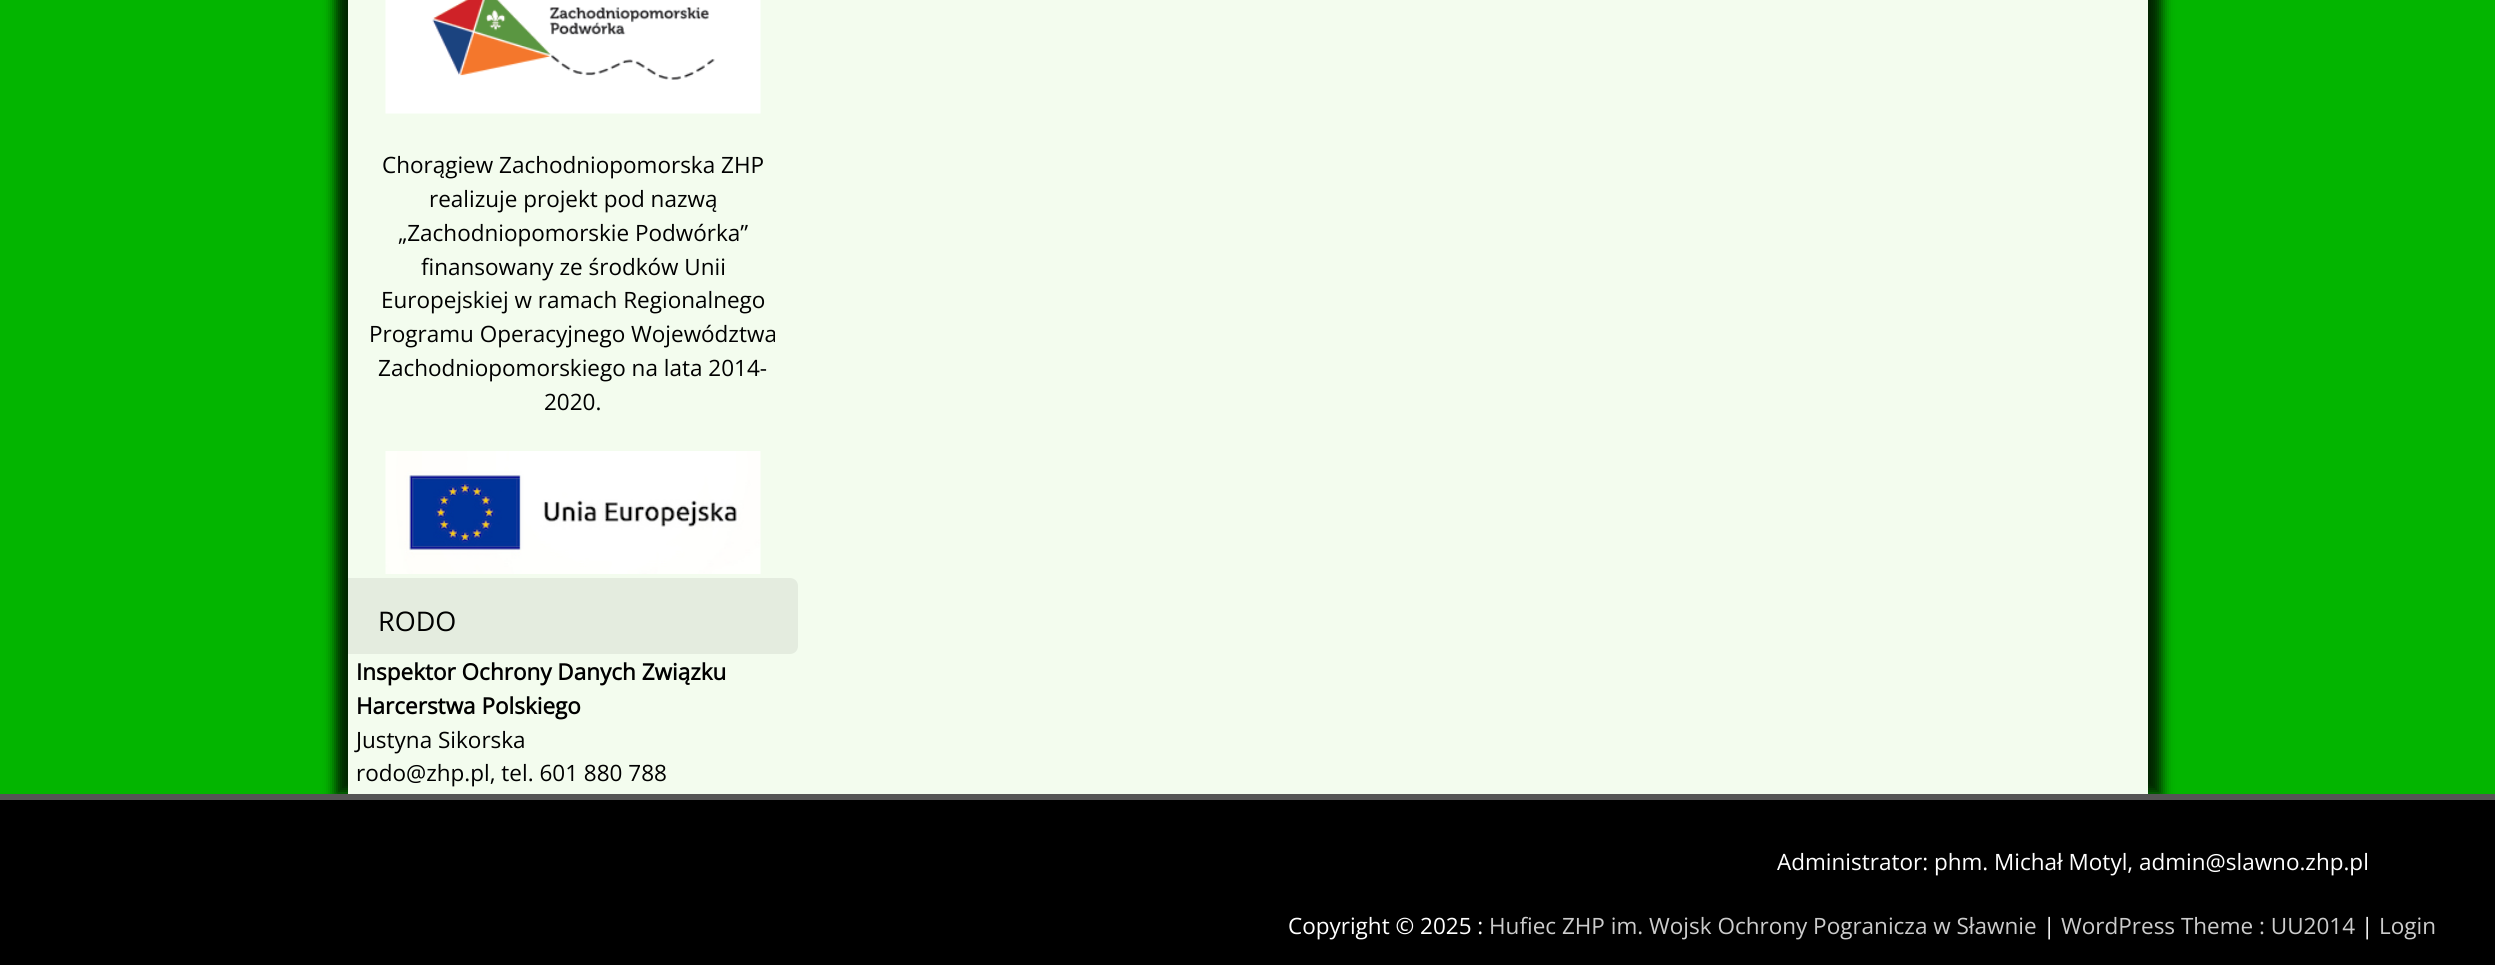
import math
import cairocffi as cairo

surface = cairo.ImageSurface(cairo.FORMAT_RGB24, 2495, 965)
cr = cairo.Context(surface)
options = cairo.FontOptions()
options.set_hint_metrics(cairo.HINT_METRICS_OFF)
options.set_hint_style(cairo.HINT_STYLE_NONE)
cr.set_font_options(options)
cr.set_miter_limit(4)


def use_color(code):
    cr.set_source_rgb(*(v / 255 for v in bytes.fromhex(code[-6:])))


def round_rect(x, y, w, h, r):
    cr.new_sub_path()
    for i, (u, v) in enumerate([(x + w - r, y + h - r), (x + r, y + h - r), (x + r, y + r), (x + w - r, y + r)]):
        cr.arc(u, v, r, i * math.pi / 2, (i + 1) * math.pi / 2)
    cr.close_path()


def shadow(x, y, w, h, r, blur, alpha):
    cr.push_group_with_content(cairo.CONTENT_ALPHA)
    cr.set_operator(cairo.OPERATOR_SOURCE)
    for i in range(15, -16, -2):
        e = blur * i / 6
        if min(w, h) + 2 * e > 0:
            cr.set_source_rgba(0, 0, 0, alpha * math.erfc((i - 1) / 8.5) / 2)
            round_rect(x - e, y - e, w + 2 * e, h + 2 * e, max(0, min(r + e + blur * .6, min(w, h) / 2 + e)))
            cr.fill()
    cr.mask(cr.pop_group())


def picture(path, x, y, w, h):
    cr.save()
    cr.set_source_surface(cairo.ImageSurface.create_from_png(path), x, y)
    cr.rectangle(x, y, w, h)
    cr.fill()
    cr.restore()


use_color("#03b500")
cr.paint()
cr.save()
cr.set_fill_rule(cairo.FILL_RULE_EVEN_ODD)
cr.new_path()
cr.move_to(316, 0)
cr.line_to(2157, 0)
cr.line_to(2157, 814)
cr.line_to(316, 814)
cr.close_path()
cr.move_to(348, -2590)
cr.line_to(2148, -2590)
cr.line_to(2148, 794)
cr.line_to(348, 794)
cr.close_path()
cr.clip()
use_color("#000000")
shadow(335, -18, 1803, 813, 0, 6, 0.8)
cr.restore()
cr.save()
cr.set_fill_rule(cairo.FILL_RULE_EVEN_ODD)
cr.new_path()
cr.move_to(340, 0)
cr.line_to(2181, 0)
cr.line_to(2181, 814)
cr.line_to(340, 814)
cr.close_path()
cr.move_to(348, -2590)
cr.line_to(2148, -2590)
cr.line_to(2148, 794)
cr.line_to(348, 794)
cr.close_path()
cr.clip()
use_color("#000000")
shadow(359, -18, 1803, 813, 0, 6, 0.8)
cr.restore()
cr.set_source_rgba(1, 1, 0.98, 0.95)
cr.rectangle(348, 0, 1800, 794)
cr.fill()
picture("img1.png", 385, 0, 376, 114)
cr.select_font_face("Open Sans")
cr.set_font_size(22.5)
use_color("#000000")
cr.move_to(382, 173)
cr.show_text("Chorągiew Zachodniopomorska ZHP")
cr.move_to(429, 207)
cr.show_text("realizuje projekt pod nazwą")
cr.move_to(398, 241)
cr.show_text("„Zachodniopomorskie Podwórka”")
cr.move_to(421, 275)
cr.show_text("finansowany ze środków Unii")
cr.move_to(381, 308)
cr.show_text("Europejskiej w ramach Regionalnego")
cr.move_to(369, 342)
cr.show_text("Programu Operacyjnego Województwa")
cr.move_to(378, 376)
cr.show_text("Zachodniopomorskiego na lata 2014-")
cr.move_to(544, 410)
cr.show_text("2020.")
picture("img2.png", 385, 451, 376, 123)
use_color("#e4ecdf")
cr.new_path()
cr.move_to(348, 578)
cr.line_to(790, 578)
cr.curve_to(794.5, 578, 798, 581.5, 798, 586)
cr.line_to(798, 646)
cr.curve_to(798, 650.5, 794.5, 654, 790, 654)
cr.line_to(348, 654)
cr.close_path()
cr.fill()
cr.set_font_size(27)
use_color("#000000")
cr.move_to(378, 631)
cr.show_text("RODO")
cr.select_font_face("Open Sans", cairo.FONT_SLANT_NORMAL, cairo.FONT_WEIGHT_BOLD)
cr.set_font_size(22.5)
cr.move_to(356, 680)
cr.show_text("Inspektor Ochrony Danych Związku")
cr.move_to(356, 714)
cr.show_text("Harcerstwa Polskiego")
cr.select_font_face("Open Sans")
cr.move_to(356, 748)
cr.show_text("Justyna Sikorska")
cr.move_to(356, 781)
cr.show_text("rodo@zhp.pl, tel. 601 880 788")
cr.rectangle(0, 800, 2495, 165)
cr.fill()
use_color("#555555")
cr.rectangle(0, 794, 2495, 6)
cr.fill()
use_color("#ffffff")
cr.move_to(1777, 870)
cr.show_text("Administrator: phm. Michał Motyl, admin@slawno.zhp.pl")
cr.move_to(1288, 934)
cr.show_text("Copyright © 2025 :")
use_color("#cccccc")
cr.move_to(1489, 934)
cr.show_text("Hufiec ZHP im. Wojsk Ochrony Pogranicza w Sławnie")
use_color("#ffffff")
cr.move_to(2043, 934)
cr.show_text("|")
use_color("#cccccc")
cr.move_to(2061, 934)
cr.show_text("WordPress Theme : UU2014")
use_color("#ffffff")
cr.move_to(2361, 934)
cr.show_text("|")
use_color("#cccccc")
cr.move_to(2379, 934)
cr.show_text("Login")
surface.write_to_png("result.png")
